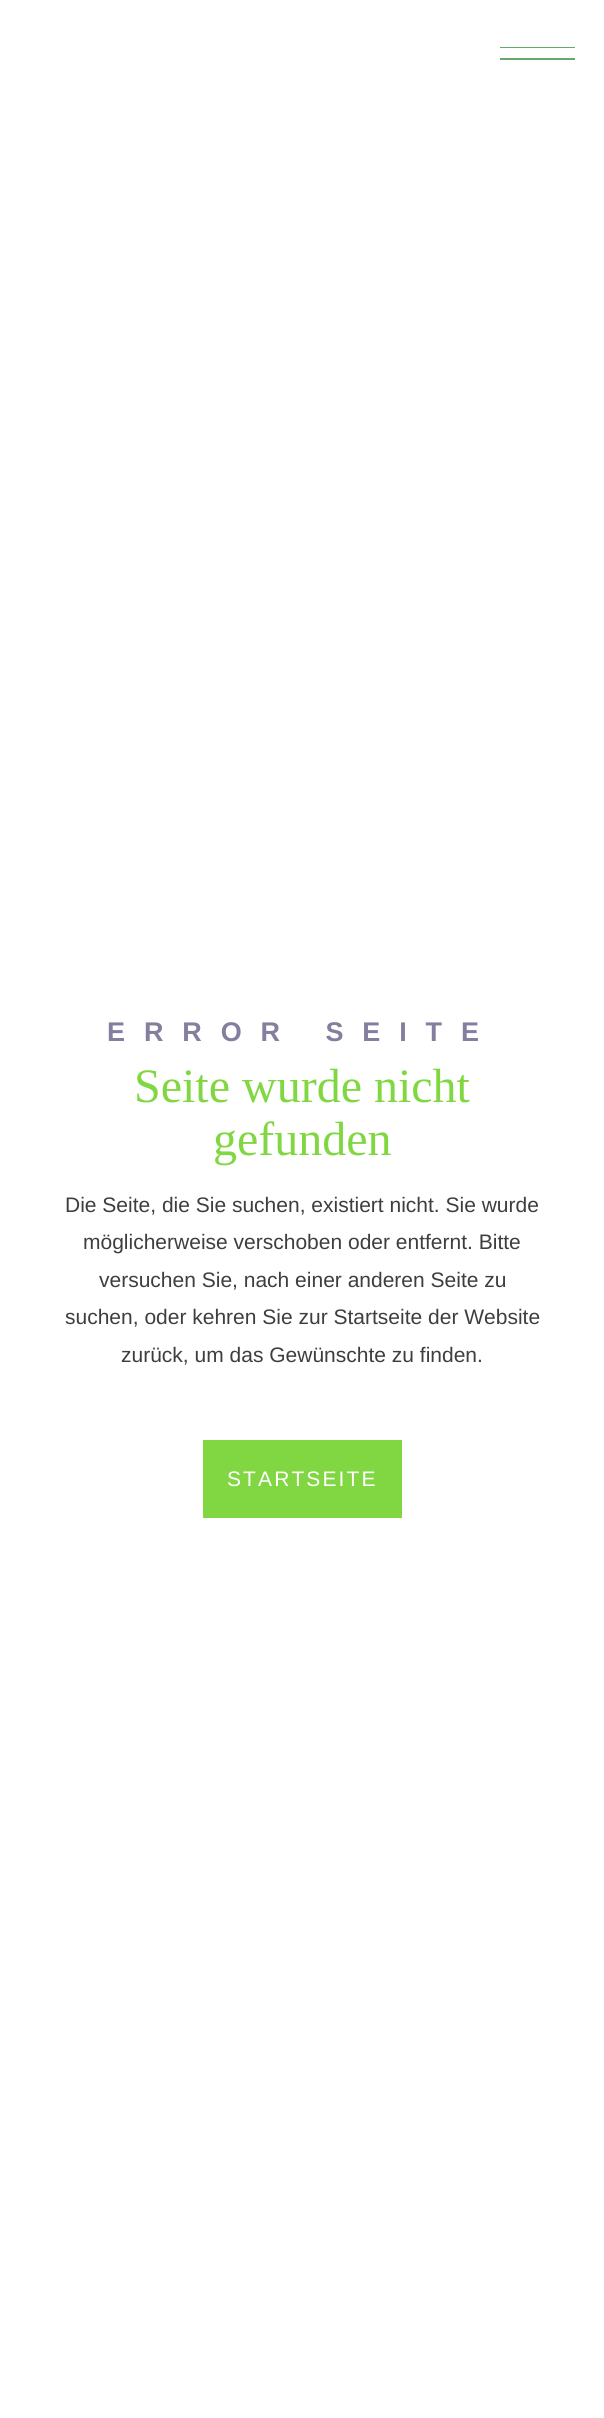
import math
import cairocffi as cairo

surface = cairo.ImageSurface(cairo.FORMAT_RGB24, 604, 2418)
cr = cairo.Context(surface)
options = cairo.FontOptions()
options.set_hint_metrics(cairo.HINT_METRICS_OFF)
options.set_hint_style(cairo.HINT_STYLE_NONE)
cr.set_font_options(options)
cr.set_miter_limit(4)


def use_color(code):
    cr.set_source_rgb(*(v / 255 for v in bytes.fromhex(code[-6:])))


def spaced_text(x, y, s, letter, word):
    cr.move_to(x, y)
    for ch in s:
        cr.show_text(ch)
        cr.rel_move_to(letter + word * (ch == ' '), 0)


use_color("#ffffff")
cr.paint()
use_color("#67a96a")
cr.rectangle(500, 47, 75, 1)
cr.fill()
cr.rectangle(500, 58, 75, 2)
cr.fill()
cr.select_font_face("Liberation Sans", cairo.FONT_SLANT_NORMAL, cairo.FONT_WEIGHT_BOLD)
cr.set_font_size(27)
use_color("#847e9f")
spaced_text(107, 1041, "ERROR SEITE", 18.9, 0)
cr.select_font_face("Liberation Serif")
cr.set_font_size(48)
use_color("#81d742")
cr.move_to(134, 1102)
cr.show_text("Seite wurde nicht")
cr.move_to(213, 1155)
cr.show_text("gefunden")
cr.select_font_face("Liberation Sans")
cr.set_font_size(21)
use_color("#3f3e3e")
cr.move_to(65, 1212)
cr.show_text("Die Seite, die Sie suchen, existiert nicht. Sie wurde")
cr.move_to(83, 1249)
cr.show_text("möglicherweise verschoben oder entfernt. Bitte")
cr.move_to(99, 1287)
cr.show_text("versuchen Sie, nach einer anderen Seite zu")
cr.move_to(65, 1324)
cr.show_text("suchen, oder kehren Sie zur Startseite der Website")
cr.move_to(121, 1362)
cr.show_text("zurück, um das Gewünschte zu finden.")
use_color("#81d742")
cr.rectangle(203, 1440, 199, 78)
cr.fill()
use_color("#ffffff")
spaced_text(227, 1486, "STARTSEITE", 2.1, 0)
surface.write_to_png("result.png")
